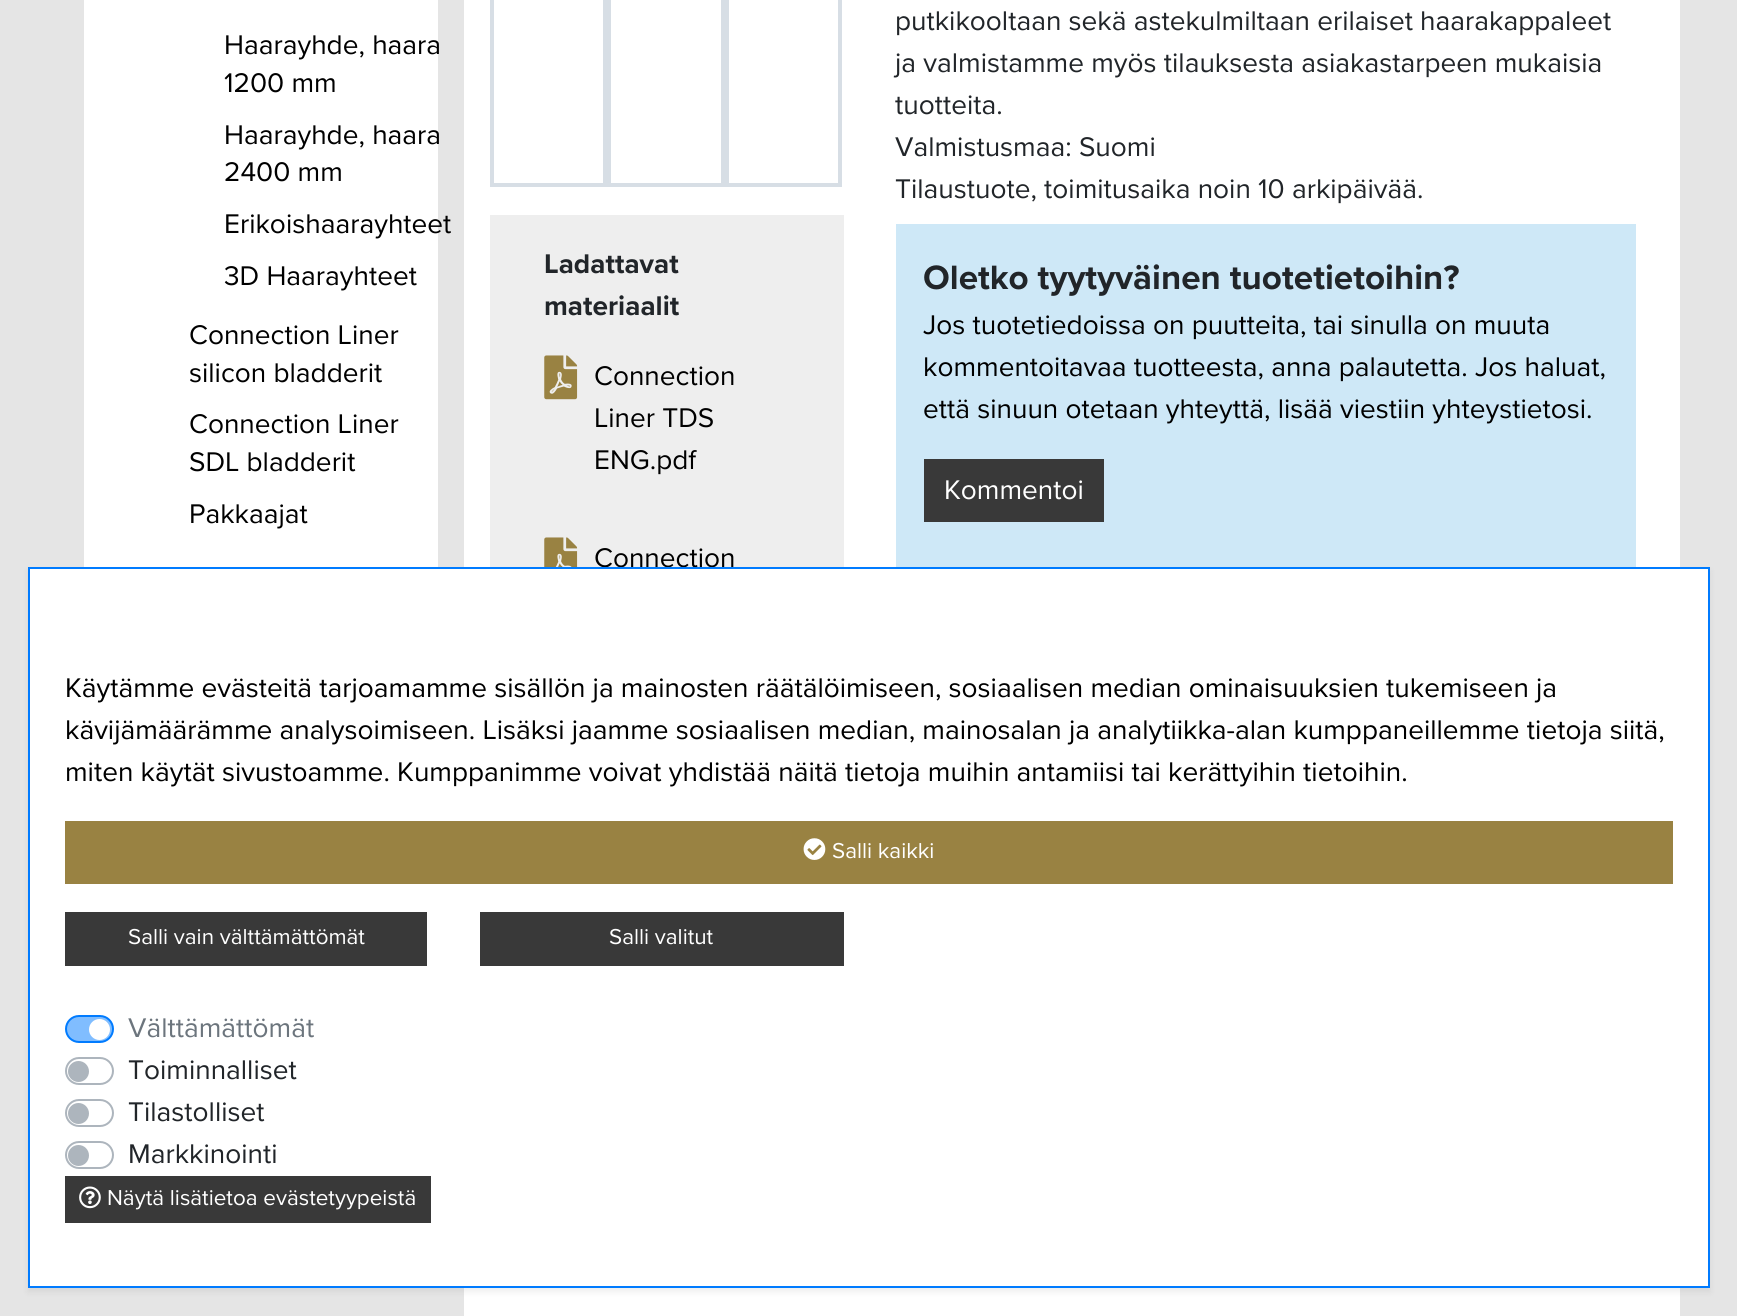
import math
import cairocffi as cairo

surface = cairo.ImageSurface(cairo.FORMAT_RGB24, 1737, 1316)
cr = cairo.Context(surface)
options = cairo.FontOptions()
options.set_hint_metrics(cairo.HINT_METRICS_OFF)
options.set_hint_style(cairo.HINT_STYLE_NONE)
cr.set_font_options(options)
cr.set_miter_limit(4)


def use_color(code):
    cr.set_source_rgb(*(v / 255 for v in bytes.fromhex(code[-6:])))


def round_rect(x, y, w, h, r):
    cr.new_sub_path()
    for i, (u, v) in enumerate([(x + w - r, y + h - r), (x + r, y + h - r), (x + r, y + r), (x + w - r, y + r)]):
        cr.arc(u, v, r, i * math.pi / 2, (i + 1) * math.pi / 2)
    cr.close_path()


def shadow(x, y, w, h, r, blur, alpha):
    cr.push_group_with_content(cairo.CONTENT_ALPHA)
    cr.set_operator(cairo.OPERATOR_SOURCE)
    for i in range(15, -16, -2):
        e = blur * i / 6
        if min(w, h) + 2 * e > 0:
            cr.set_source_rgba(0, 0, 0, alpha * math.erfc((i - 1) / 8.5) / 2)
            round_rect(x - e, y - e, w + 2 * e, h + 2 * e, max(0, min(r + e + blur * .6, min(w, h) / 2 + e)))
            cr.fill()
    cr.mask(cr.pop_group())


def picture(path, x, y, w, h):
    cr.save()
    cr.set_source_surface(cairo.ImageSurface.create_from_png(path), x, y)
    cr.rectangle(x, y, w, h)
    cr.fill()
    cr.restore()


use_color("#e5e5e5")
cr.paint()
use_color("#ffffff")
cr.rectangle(84, 0, 354, 567)
cr.fill()
cr.select_font_face("Proxima Nova")
cr.set_font_size(28)
use_color("#000000")
cr.move_to(224, 54)
cr.show_text("Haarayhde, haara")
cr.move_to(224, 92)
cr.show_text("1200 mm")
cr.move_to(224, 144)
cr.show_text("Haarayhde, haara")
cr.move_to(224, 181)
cr.show_text("2400 mm")
cr.move_to(224, 233)
cr.show_text("Erikoishaarayhteet")
cr.move_to(224, 285)
cr.show_text("3D Haarayhteet")
cr.move_to(189, 344)
cr.show_text("Connection Liner")
cr.move_to(189, 382)
cr.show_text("silicon bladderit")
cr.move_to(189, 433)
cr.show_text("Connection Liner")
cr.move_to(189, 471)
cr.show_text("SDL bladderit")
cr.move_to(189, 523)
cr.show_text("Pakkaajat")
use_color("#ffffff")
cr.rectangle(464, 0, 1216, 1316)
cr.fill()
cr.rectangle(492, -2, 113, 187)
use_color("#d7dee5")
cr.set_line_width(4)
cr.stroke()
cr.rectangle(609, -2, 114, 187)
cr.stroke()
cr.rectangle(727, -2, 113, 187)
cr.stroke()
use_color("#eeeeee")
cr.rectangle(490, 215, 354, 352)
cr.fill()
cr.select_font_face("Proxima Nova", cairo.FONT_SLANT_NORMAL, cairo.FONT_WEIGHT_BOLD)
use_color("#212529")
cr.move_to(544, 273)
cr.show_text("Ladattavat")
cr.move_to(544, 315)
cr.show_text("materiaalit")
picture("img1.png", 544, 355, 34, 45)
cr.select_font_face("Proxima Nova")
use_color("#000000")
cr.move_to(594, 385)
cr.show_text("Connection")
cr.move_to(594, 427)
cr.show_text("Liner TDS")
cr.move_to(594, 469)
cr.show_text("ENG.pdf")
picture("img2.png", 544, 537, 34, 30)
cr.move_to(594, 567)
cr.show_text("Connection")
use_color("#212529")
cr.move_to(895, 30)
cr.show_text("putkikooltaan sekä astekulmiltaan erilaiset haarakappaleet")
cr.move_to(895, 72)
cr.show_text("ja valmistamme myös tilauksesta asiakastarpeen mukaisia")
cr.move_to(895, 114)
cr.show_text("tuotteita.")
cr.move_to(895, 156)
cr.show_text("Valmistusmaa: Suomi")
cr.move_to(895, 198)
cr.show_text("Tilaustuote, toimitusaika noin 10 arkipäivää.")
use_color("#cee8f7")
cr.rectangle(896, 224, 740, 343)
cr.fill()
cr.select_font_face("Proxima Nova", cairo.FONT_SLANT_NORMAL, cairo.FONT_WEIGHT_BOLD)
cr.set_font_size(35)
use_color("#212529")
cr.move_to(923, 289)
cr.show_text("Oletko tyytyväinen tuotetietoihin?")
cr.select_font_face("Proxima Nova")
cr.set_font_size(28)
use_color("#000000")
cr.move_to(923, 334)
cr.show_text("Jos tuotetiedoissa on puutteita, tai sinulla on muuta")
cr.move_to(923, 376)
cr.show_text("kommentoitavaa tuotteesta, anna palautetta. Jos haluat,")
cr.move_to(923, 418)
cr.show_text("että sinuun otetaan yhteyttä, lisää viestiin yhteystietosi.")
use_color("#393939")
cr.rectangle(924, 459, 180, 63)
cr.fill()
use_color("#ffffff")
cr.move_to(944, 499)
cr.show_text("Kommentoi")
use_color("#000000")
shadow(28, 571, 1682, 721, 0, 3.5, 0.07)
use_color("#ffffff")
cr.rectangle(29, 568, 1680, 719)
cr.fill_preserve()
use_color("#007bff")
cr.set_line_width(2)
cr.stroke()
use_color("#000000")
cr.move_to(65, 697)
cr.show_text("Käytämme evästeitä tarjoamamme sisällön ja mainosten räätälöimiseen, sosiaalisen median ominaisuuksien tukemiseen ja")
cr.move_to(65, 739)
cr.show_text("kävijämäärämme analysoimiseen. Lisäksi jaamme sosiaalisen median, mainosalan ja analytiikka-alan kumppaneillemme tietoja siitä,")
cr.move_to(65, 781)
cr.show_text("miten käytät sivustoamme. Kumppanimme voivat yhdistää näitä tietoja muihin antamiisi tai kerättyihin tietoihin.")
use_color("#998242")
cr.rectangle(65, 821, 1608, 63)
cr.fill()
picture("img3.png", 803, 838, 23, 22)
cr.set_font_size(22.4)
use_color("#ffffff")
cr.move_to(832, 858)
cr.show_text("Salli kaikki")
use_color("#393939")
cr.rectangle(65, 912, 362, 54)
cr.fill()
use_color("#ffffff")
cr.move_to(128, 944)
cr.show_text("Salli vain välttämättömät")
use_color("#393939")
cr.rectangle(480, 912, 364, 54)
cr.fill()
use_color("#ffffff")
cr.move_to(609, 944)
cr.show_text("Salli valitut")
use_color("#80bdff")
round_rect(66, 1016, 47, 26, 13)
cr.fill_preserve()
use_color("#007bff")
cr.stroke()
cr.set_font_size(28)
use_color("#6c757d")
cr.move_to(128, 1037)
cr.show_text("Välttämättömät")
use_color("#ffffff")
cr.new_path()
cr.arc(99.5, 1029.5, 10.5, 0, 2 * math.pi)
cr.fill()
round_rect(66, 1058, 47, 26, 13)
use_color("#adb5bd")
cr.stroke()
use_color("#212529")
cr.move_to(128, 1079)
cr.show_text("Toiminnalliset")
use_color("#adb5bd")
cr.new_path()
cr.arc(78.5, 1071.5, 10.5, 0, 2 * math.pi)
cr.fill()
round_rect(66, 1100, 47, 26, 13)
cr.stroke()
use_color("#212529")
cr.move_to(128, 1121)
cr.show_text("Tilastolliset")
use_color("#adb5bd")
cr.new_path()
cr.arc(78.5, 1113.5, 10.5, 0, 2 * math.pi)
cr.fill()
round_rect(66, 1142, 47, 26, 13)
cr.stroke()
use_color("#212529")
cr.move_to(128, 1163)
cr.show_text("Markkinointi")
use_color("#adb5bd")
cr.new_path()
cr.arc(78.5, 1155.5, 10.5, 0, 2 * math.pi)
cr.fill()
use_color("#393939")
cr.rectangle(65, 1176, 366, 47)
cr.fill()
picture("img4.png", 79, 1186, 22, 23)
cr.set_font_size(22.4)
use_color("#ffffff")
cr.move_to(107, 1205)
cr.show_text("Näytä lisätietoa evästetyypeistä")
surface.write_to_png("result.png")
